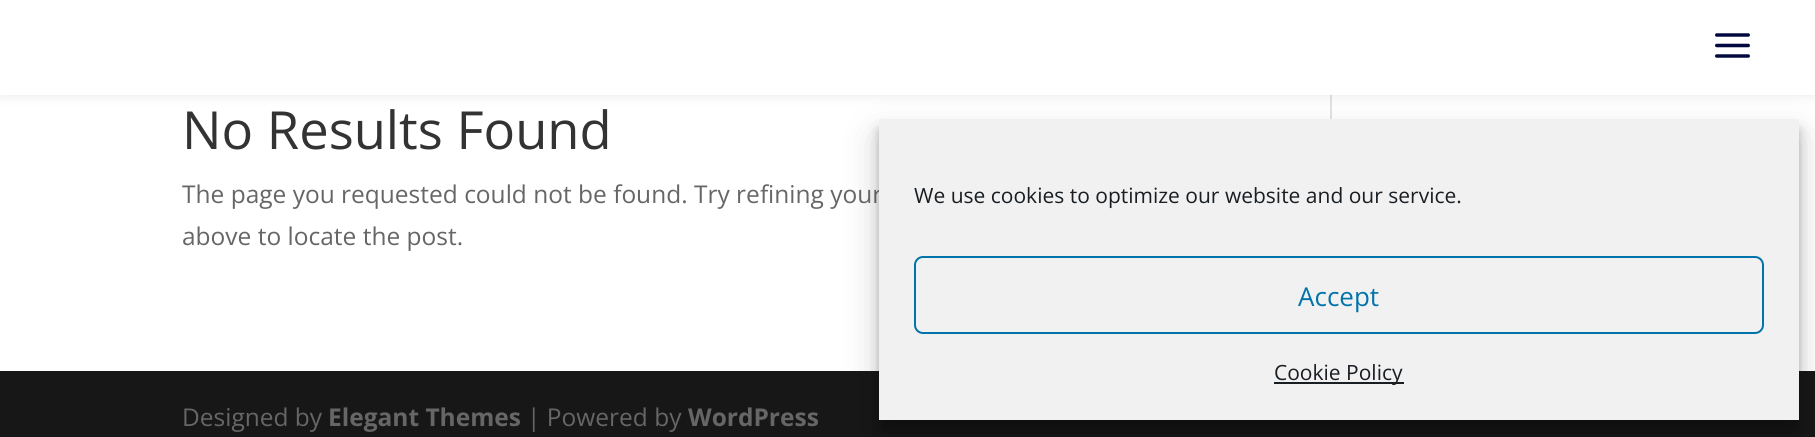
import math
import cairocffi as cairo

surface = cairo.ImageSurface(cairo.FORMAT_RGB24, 1815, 437)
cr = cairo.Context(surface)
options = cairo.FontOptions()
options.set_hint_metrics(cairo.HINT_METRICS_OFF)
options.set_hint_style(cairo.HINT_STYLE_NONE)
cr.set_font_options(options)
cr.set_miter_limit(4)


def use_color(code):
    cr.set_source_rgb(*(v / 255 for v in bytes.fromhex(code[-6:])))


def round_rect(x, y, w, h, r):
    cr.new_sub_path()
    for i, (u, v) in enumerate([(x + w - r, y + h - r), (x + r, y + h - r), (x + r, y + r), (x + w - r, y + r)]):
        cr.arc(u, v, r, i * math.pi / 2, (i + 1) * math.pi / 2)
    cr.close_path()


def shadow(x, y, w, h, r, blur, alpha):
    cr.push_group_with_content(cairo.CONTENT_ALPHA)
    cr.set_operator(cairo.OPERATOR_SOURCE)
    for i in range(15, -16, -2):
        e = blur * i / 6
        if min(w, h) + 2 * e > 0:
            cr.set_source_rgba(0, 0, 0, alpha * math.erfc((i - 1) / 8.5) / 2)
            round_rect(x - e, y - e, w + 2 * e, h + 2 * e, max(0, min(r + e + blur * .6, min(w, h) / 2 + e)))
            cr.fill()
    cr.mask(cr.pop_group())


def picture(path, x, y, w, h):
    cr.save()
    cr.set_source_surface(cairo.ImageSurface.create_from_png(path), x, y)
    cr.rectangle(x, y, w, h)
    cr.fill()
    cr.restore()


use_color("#ffffff")
cr.paint()
use_color("#e2e2e2")
cr.rectangle(1330, 95, 2, 24)
cr.fill()
use_color("#000000")
shadow(0, 0, 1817, 95, 0, 6, 0.1)
use_color("#171717")
cr.rectangle(0, 371, 1815, 66)
cr.fill()
use_color("#000000")
shadow(879, 137, 920, 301, 0, 17.5, 0.19)
use_color("#ffffff")
cr.rectangle(0, 0, 1815, 95)
cr.fill()
picture("img1.png", 1715, 33, 35, 25)
cr.select_font_face("Open Sans")
cr.set_font_size(52.5)
use_color("#333333")
cr.move_to(182, 149)
cr.show_text("No Results Found")
cr.set_font_size(24.5)
use_color("#666666")
cr.move_to(182, 203)
cr.show_text("The page you requested could not be found. Try refining your")
cr.move_to(182, 245)
cr.show_text("above to locate the post.")
cr.move_to(182, 426)
cr.show_text("Designed by")
cr.select_font_face("Open Sans", cairo.FONT_SLANT_NORMAL, cairo.FONT_WEIGHT_BOLD)
cr.move_to(328, 426)
cr.show_text("Elegant Themes")
cr.select_font_face("Open Sans")
cr.move_to(527, 426)
cr.show_text("| Powered by")
cr.select_font_face("Open Sans", cairo.FONT_SLANT_NORMAL, cairo.FONT_WEIGHT_BOLD)
cr.move_to(688, 426)
cr.show_text("WordPress")
use_color("#000000")
shadow(879, 130, 920, 301, 0, 5, 0.23)
use_color("#f1f1f1")
cr.rectangle(879, 119, 920, 301)
cr.fill()
cr.select_font_face("Open Sans")
cr.set_font_size(21)
use_color("#191e23")
cr.move_to(914, 203)
cr.show_text("We use cookies to optimize our website and our service.")
round_rect(915, 257, 848, 76, 8)
use_color("#0073aa")
cr.stroke()
cr.set_font_size(26)
cr.move_to(1298, 306)
cr.show_text("Accept")
use_color("#191e23")
cr.rectangle(1274, 382, 130, 2)
cr.fill()
cr.set_font_size(21)
cr.move_to(1274, 380)
cr.show_text("Cookie Policy")
surface.write_to_png("result.png")
